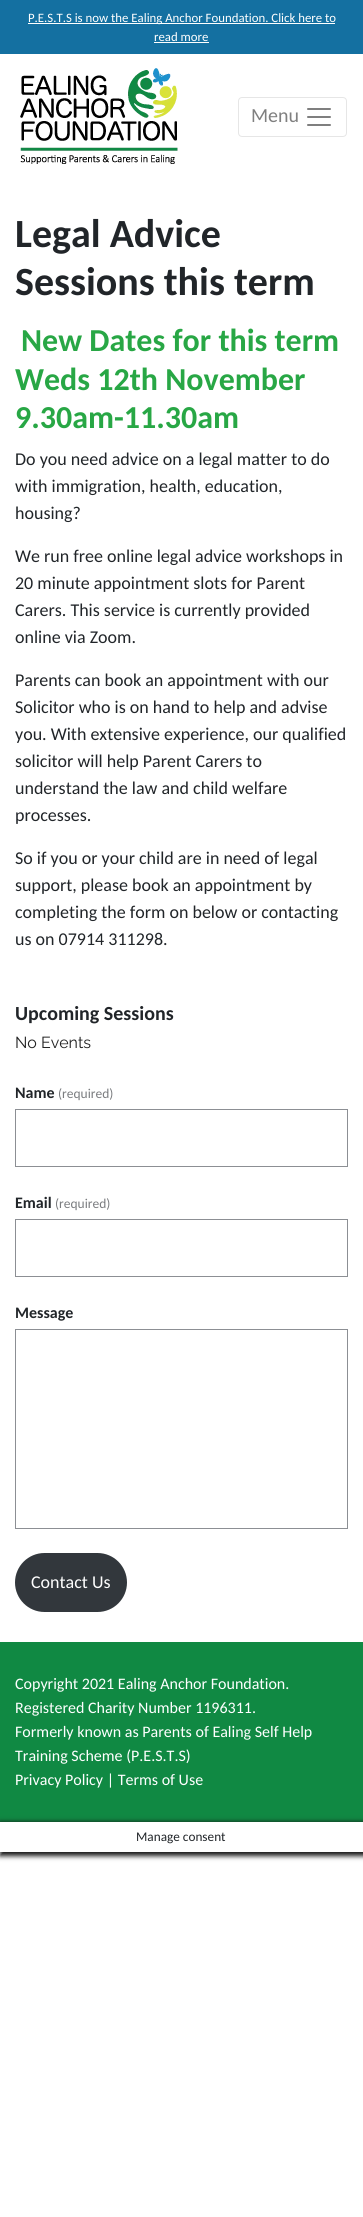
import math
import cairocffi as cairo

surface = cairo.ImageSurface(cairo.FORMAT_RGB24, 363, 2217)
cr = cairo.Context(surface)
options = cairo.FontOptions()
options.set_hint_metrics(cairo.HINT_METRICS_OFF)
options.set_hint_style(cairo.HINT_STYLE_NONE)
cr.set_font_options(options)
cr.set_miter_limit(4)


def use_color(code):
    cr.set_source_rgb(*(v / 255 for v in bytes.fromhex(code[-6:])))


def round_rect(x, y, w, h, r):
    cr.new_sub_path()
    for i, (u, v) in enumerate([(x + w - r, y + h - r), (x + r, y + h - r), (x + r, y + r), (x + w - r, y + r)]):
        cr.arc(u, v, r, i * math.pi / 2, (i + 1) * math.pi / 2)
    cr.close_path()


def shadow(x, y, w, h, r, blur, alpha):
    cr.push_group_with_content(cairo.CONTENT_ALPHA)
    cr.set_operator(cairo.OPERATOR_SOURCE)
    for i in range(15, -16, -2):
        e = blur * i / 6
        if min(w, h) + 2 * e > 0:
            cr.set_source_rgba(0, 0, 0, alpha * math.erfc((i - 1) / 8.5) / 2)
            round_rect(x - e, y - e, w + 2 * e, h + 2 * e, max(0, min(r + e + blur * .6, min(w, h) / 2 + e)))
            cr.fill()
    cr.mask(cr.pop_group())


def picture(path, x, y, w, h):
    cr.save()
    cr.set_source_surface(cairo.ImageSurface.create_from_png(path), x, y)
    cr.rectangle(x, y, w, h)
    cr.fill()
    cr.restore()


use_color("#ffffff")
cr.paint()
use_color("#1470a1")
cr.rectangle(0, 0, 363, 54)
cr.fill()
use_color("#ffffff")
cr.rectangle(28, 23, 307, 1)
cr.fill()
cr.select_font_face("Carlito")
cr.set_font_size(12.8)
cr.move_to(28, 22)
cr.show_text("P.E.S.T.S is now the Ealing Anchor Foundation. Click here to")
cr.move_to(154, 41)
cr.show_text("read more")
cr.rectangle(154, 42, 55, 1)
cr.fill()
picture("img1.png", 20, 68, 158, 96)
round_rect(238.5, 97.5, 108, 39, 3.5)
use_color("#e6e6e6")
cr.set_line_width(1)
cr.stroke()
cr.set_font_size(20)
use_color("#808080")
cr.move_to(251, 122)
cr.show_text("Menu")
picture("img2.png", 307, 108, 24, 18)
cr.select_font_face("Carlito", cairo.FONT_SLANT_NORMAL, cairo.FONT_WEIGHT_BOLD)
cr.set_font_size(40)
use_color("#212529")
cr.move_to(15, 247)
cr.show_text("Legal Advice")
cr.move_to(15, 295)
cr.show_text("Sessions this term")
cr.set_font_size(32)
use_color("#28a745")
cr.move_to(21, 351)
cr.show_text("New Dates for this term")
cr.move_to(15, 390)
cr.show_text("Weds 12th November")
cr.move_to(15, 428)
cr.show_text("9.30am-11.30am")
cr.select_font_face("Carlito")
cr.set_font_size(18)
use_color("#212529")
cr.move_to(15, 465)
cr.show_text("Do you need advice on a legal matter to do")
cr.move_to(15, 492)
cr.show_text("with immigration, health, education,")
cr.move_to(15, 519)
cr.show_text("housing?")
cr.move_to(15, 562)
cr.show_text("We run free online legal advice workshops in")
cr.move_to(15, 589)
cr.show_text("20 minute appointment slots for Parent")
cr.move_to(15, 616)
cr.show_text("Carers. This service is currently provided")
cr.move_to(15, 643)
cr.show_text("online via Zoom.")
cr.move_to(15, 686)
cr.show_text("Parents can book an appointment with our")
cr.move_to(15, 713)
cr.show_text("Solicitor who is on hand to help and advise")
cr.move_to(15, 740)
cr.show_text("you. With extensive experience, our qualified")
cr.move_to(15, 767)
cr.show_text("solicitor will help Parent Carers to")
cr.move_to(15, 794)
cr.show_text("understand the law and child welfare")
cr.move_to(15, 821)
cr.show_text("processes.")
cr.move_to(15, 864)
cr.show_text("So if you or your child are in need of legal")
cr.move_to(15, 891)
cr.show_text("support, please book an appointment by")
cr.move_to(15, 918)
cr.show_text("completing the form on below or contacting")
cr.move_to(15, 945)
cr.show_text("us on 07914 311298.")
cr.select_font_face("Carlito", cairo.FONT_SLANT_NORMAL, cairo.FONT_WEIGHT_BOLD)
cr.set_font_size(20)
cr.move_to(15, 1020)
cr.show_text("Upcoming Sessions")
cr.select_font_face("Raleway")
cr.set_font_size(16)
use_color("#212121")
cr.move_to(15, 1048)
cr.show_text("No Events")
cr.select_font_face("Carlito", cairo.FONT_SLANT_NORMAL, cairo.FONT_WEIGHT_BOLD)
use_color("#212529")
cr.move_to(15, 1098)
cr.show_text("Name")
cr.select_font_face("Carlito")
cr.set_font_size(13.5)
use_color("#7a7c7f")
cr.move_to(58, 1098)
cr.show_text("(required)")
cr.rectangle(15.5, 1109.5, 332, 57)
use_color("#8c8f94")
cr.stroke()
cr.select_font_face("Carlito", cairo.FONT_SLANT_NORMAL, cairo.FONT_WEIGHT_BOLD)
cr.set_font_size(16)
use_color("#212529")
cr.move_to(15, 1208)
cr.show_text("Email")
cr.select_font_face("Carlito")
cr.set_font_size(13.5)
use_color("#7a7c7f")
cr.move_to(55, 1208)
cr.show_text("(required)")
cr.rectangle(15.5, 1219.5, 332, 57)
use_color("#8c8f94")
cr.stroke()
cr.select_font_face("Carlito", cairo.FONT_SLANT_NORMAL, cairo.FONT_WEIGHT_BOLD)
cr.set_font_size(16)
use_color("#212529")
cr.move_to(15, 1318)
cr.show_text("Message")
cr.rectangle(15.5, 1329.5, 332, 199)
use_color("#8c8f94")
cr.stroke()
use_color("#32373c")
round_rect(15, 1553, 112, 59, 29.5)
cr.fill()
cr.select_font_face("Carlito")
cr.set_font_size(18)
use_color("#ffffff")
cr.move_to(31, 1588)
cr.show_text("Contact Us")
use_color("#108943")
cr.rectangle(0, 1642, 363, 180)
cr.fill()
cr.set_font_size(16)
use_color("#ffffff")
cr.move_to(15, 1689)
cr.show_text("Copyright 2021 Ealing Anchor Foundation.")
cr.move_to(15, 1713)
cr.show_text("Registered Charity Number 1196311.")
cr.move_to(15, 1737)
cr.show_text("Formerly known as Parents of Ealing Self Help")
cr.move_to(15, 1761)
cr.show_text("Training Scheme (P.E.S.T.S)")
cr.move_to(15, 1785)
cr.show_text("Privacy Policy | Terms of Use")
cr.save()
cr.set_fill_rule(cairo.FILL_RULE_EVEN_ODD)
cr.new_path()
cr.move_to(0, 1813)
cr.line_to(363, 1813)
cr.line_to(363, 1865)
cr.line_to(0, 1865)
cr.close_path()
cr.move_to(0, 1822)
cr.line_to(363, 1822)
cr.line_to(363, 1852)
cr.line_to(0, 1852)
cr.close_path()
cr.clip()
use_color("#161616")
shadow(0, 1822, 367, 34, 0, 2.5, 1)
cr.restore()
cr.set_font_size(13.25)
use_color("#212529")
cr.move_to(136, 1841)
cr.show_text("Manage consent")
surface.write_to_png("result.png")
